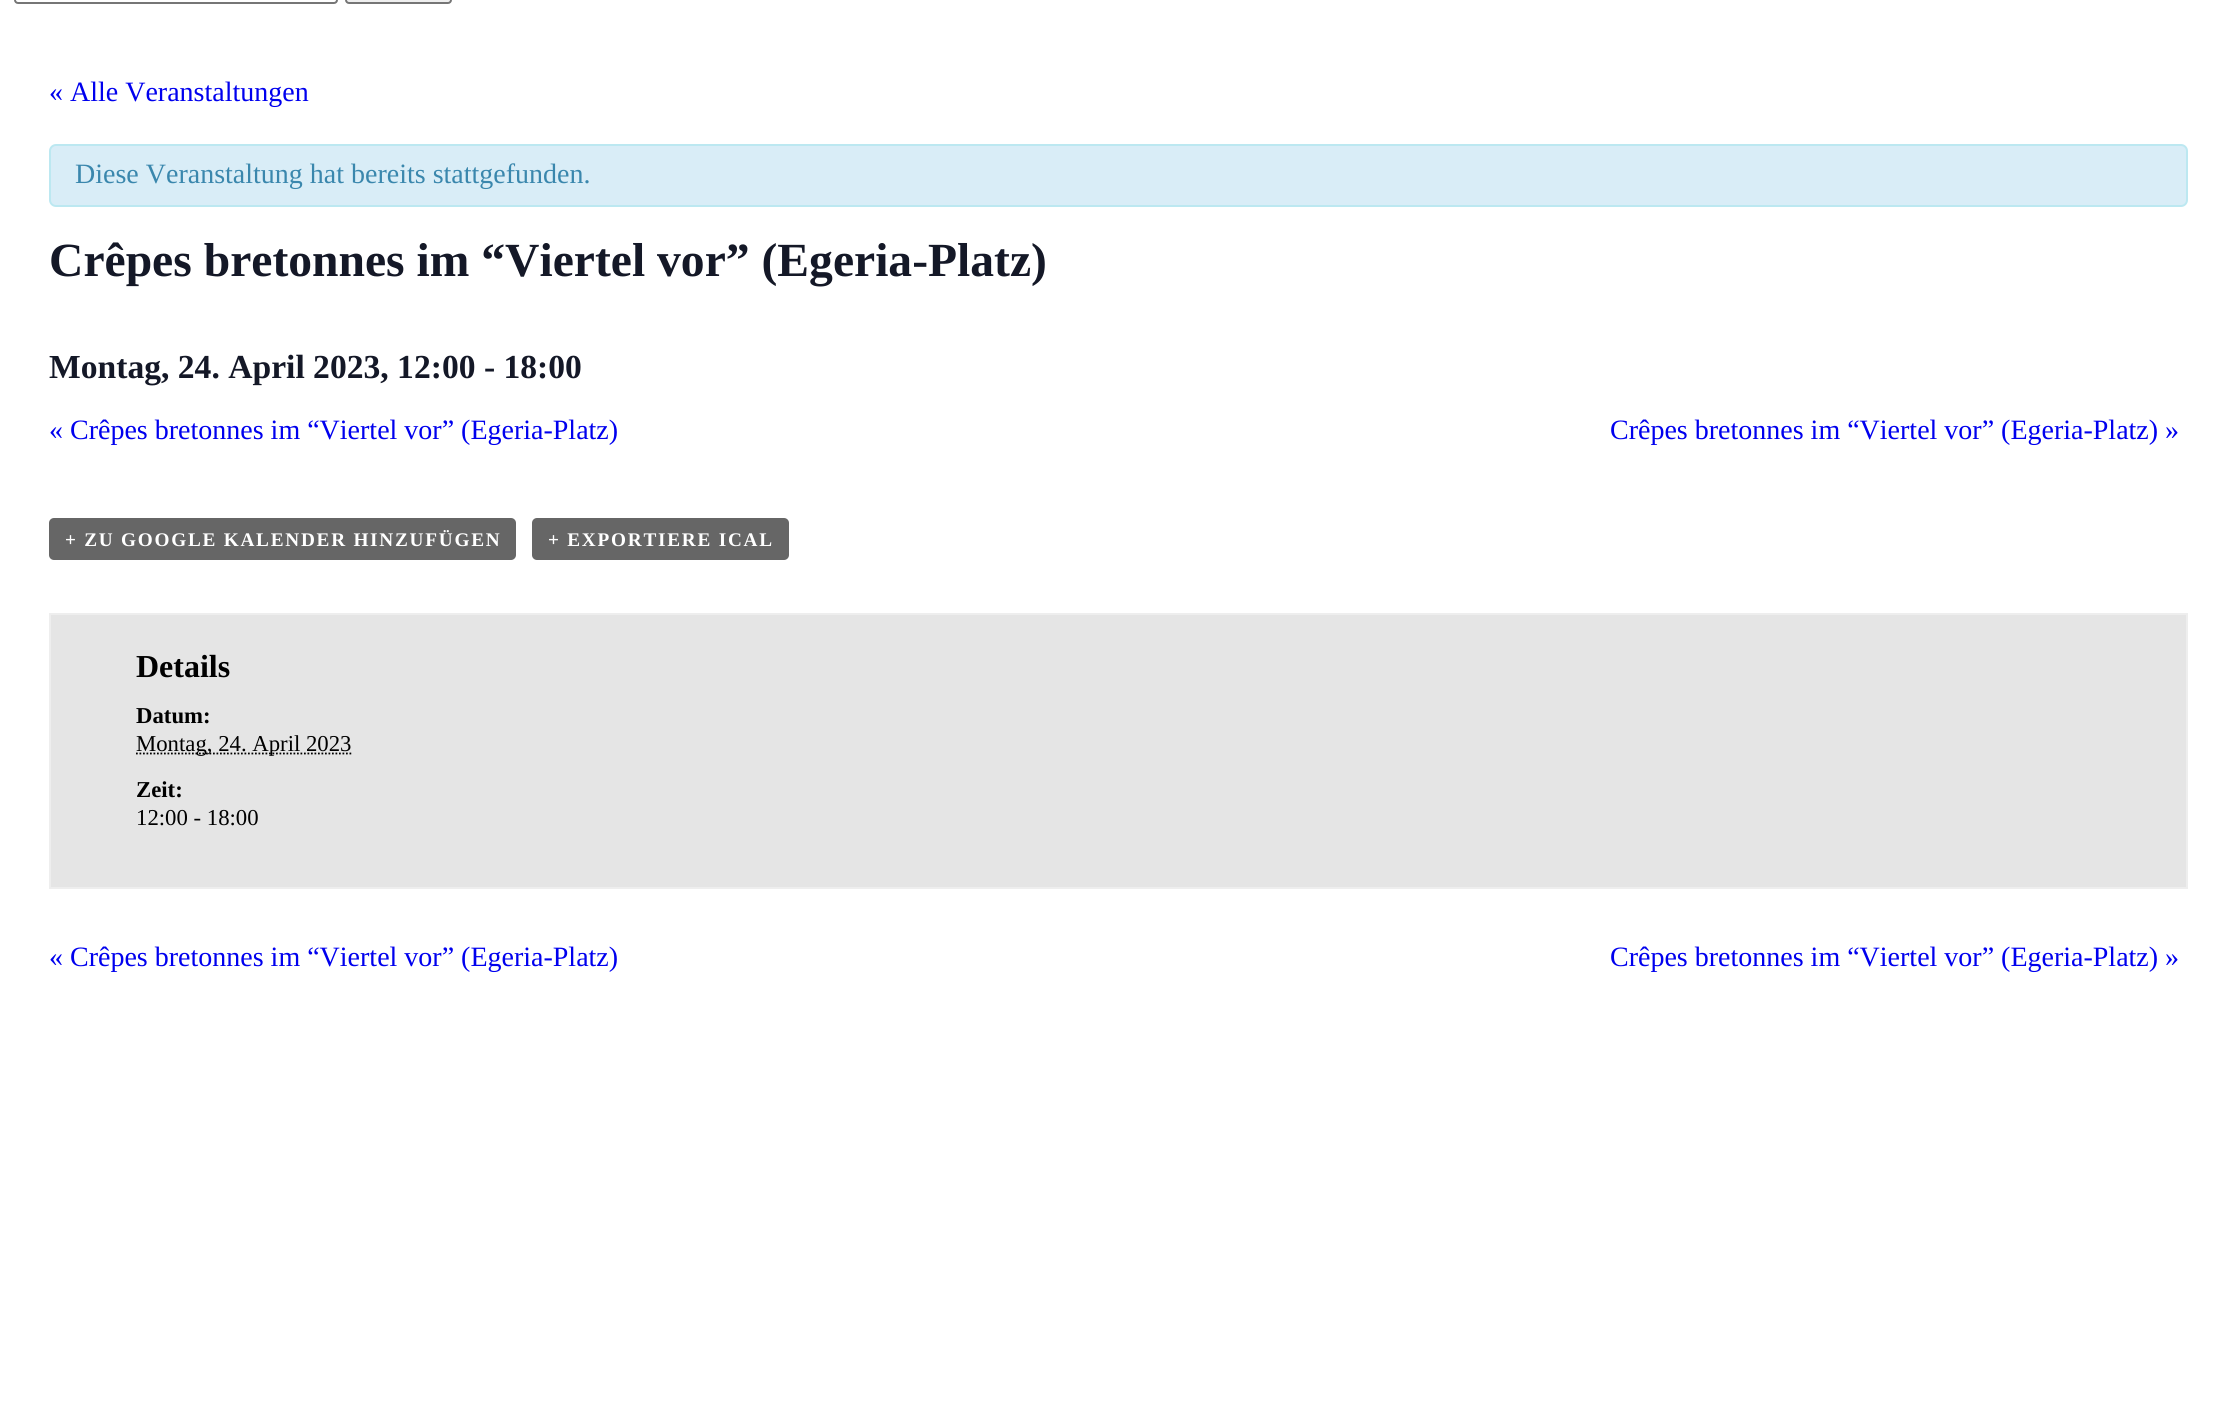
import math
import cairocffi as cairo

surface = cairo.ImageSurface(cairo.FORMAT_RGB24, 2236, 1410)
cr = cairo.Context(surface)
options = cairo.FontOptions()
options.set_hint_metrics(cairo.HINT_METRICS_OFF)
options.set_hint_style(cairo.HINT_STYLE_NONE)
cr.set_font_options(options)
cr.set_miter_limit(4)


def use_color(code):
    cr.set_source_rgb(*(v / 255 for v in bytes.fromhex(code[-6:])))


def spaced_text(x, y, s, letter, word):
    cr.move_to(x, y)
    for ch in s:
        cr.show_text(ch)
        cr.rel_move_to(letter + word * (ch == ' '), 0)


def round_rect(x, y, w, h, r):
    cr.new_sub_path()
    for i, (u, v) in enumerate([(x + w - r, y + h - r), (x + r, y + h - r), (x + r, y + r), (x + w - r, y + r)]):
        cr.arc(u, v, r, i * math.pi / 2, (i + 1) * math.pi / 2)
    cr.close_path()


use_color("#ffffff")
cr.paint()
round_rect(15, -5, 322, 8, 3)
use_color("#767676")
cr.stroke()
use_color("#efefef")
round_rect(346, -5, 105, 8, 3)
cr.fill_preserve()
use_color("#767676")
cr.stroke()
cr.select_font_face("Liberation Serif")
cr.set_font_size(28)
use_color("#0000ee")
cr.move_to(49, 101)
cr.show_text("« Alle Veranstaltungen")
use_color("#d9edf7")
round_rect(50, 145, 2137, 61, 6)
cr.fill_preserve()
use_color("#bce8f1")
cr.stroke()
use_color("#3a87ad")
cr.move_to(75, 183)
cr.show_text("Diese Veranstaltung hat bereits stattgefunden.")
cr.select_font_face("Liberation Serif", cairo.FONT_SLANT_NORMAL, cairo.FONT_WEIGHT_BOLD)
cr.set_font_size(47.6)
use_color("#141827")
cr.move_to(49, 276)
cr.show_text("Crêpes bretonnes im “Viertel vor” (Egeria-Platz)")
cr.set_font_size(33.6)
cr.move_to(49, 378)
cr.show_text("Montag, 24. April 2023, 12:00 - 18:00")
cr.select_font_face("Liberation Serif")
cr.set_font_size(28)
use_color("#0000ee")
cr.move_to(49, 439)
cr.show_text("« Crêpes bretonnes im “Viertel vor” (Egeria-Platz)")
cr.move_to(1610, 439)
cr.show_text("Crêpes bretonnes im “Viertel vor” (Egeria-Platz) »")
use_color("#666666")
round_rect(49, 518, 467, 42, 5)
cr.fill()
cr.select_font_face("Liberation Serif", cairo.FONT_SLANT_NORMAL, cairo.FONT_WEIGHT_BOLD)
cr.set_font_size(19.25)
use_color("#ffffff")
spaced_text(65, 546, "+ ZU GOOGLE KALENDER HINZUFÜGEN", 1.75, 0)
use_color("#666666")
round_rect(532, 518, 257, 42, 5)
cr.fill()
use_color("#ffffff")
spaced_text(548, 546, "+ EXPORTIERE ICAL", 1.75, 0)
use_color("#e5e5e5")
cr.rectangle(50, 614, 2137, 274)
cr.fill_preserve()
use_color("#eeeeee")
cr.stroke()
cr.set_font_size(32)
use_color("#000000")
cr.move_to(136, 677)
cr.show_text("Details")
cr.set_font_size(22.75)
cr.move_to(136, 723)
cr.show_text("Datum:")
cr.new_path()
cr.move_to(136, 753.5)
cr.line_to(351.5, 753.5)
cr.set_line_width(1.8)
cr.set_dash([1.75, 1.75])
cr.stroke()
cr.select_font_face("Liberation Serif")
cr.move_to(136, 751)
cr.show_text("Montag, 24. April 2023")
cr.select_font_face("Liberation Serif", cairo.FONT_SLANT_NORMAL, cairo.FONT_WEIGHT_BOLD)
cr.move_to(136, 797)
cr.show_text("Zeit:")
cr.select_font_face("Liberation Serif")
cr.move_to(136, 825)
cr.show_text("12:00 - 18:00")
cr.set_font_size(28)
use_color("#0000ee")
cr.move_to(49, 966)
cr.show_text("« Crêpes bretonnes im “Viertel vor” (Egeria-Platz)")
cr.move_to(1610, 966)
cr.show_text("Crêpes bretonnes im “Viertel vor” (Egeria-Platz) »")
surface.write_to_png("result.png")
